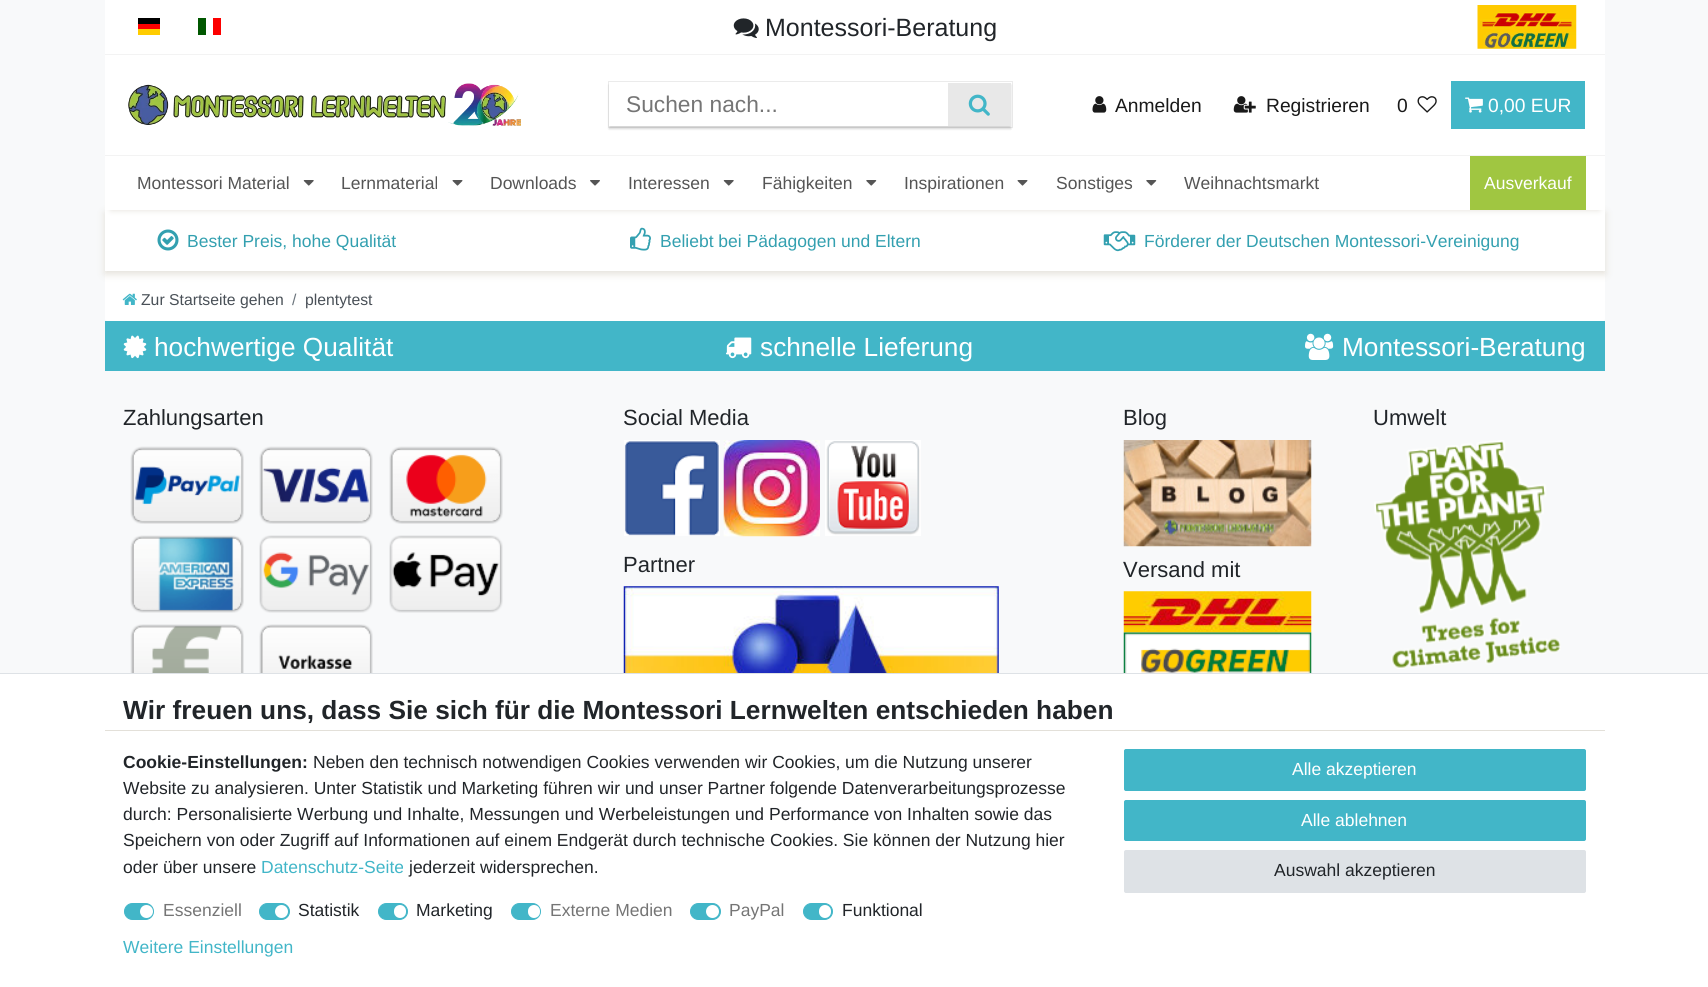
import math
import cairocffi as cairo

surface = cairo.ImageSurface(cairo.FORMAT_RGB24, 1708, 987)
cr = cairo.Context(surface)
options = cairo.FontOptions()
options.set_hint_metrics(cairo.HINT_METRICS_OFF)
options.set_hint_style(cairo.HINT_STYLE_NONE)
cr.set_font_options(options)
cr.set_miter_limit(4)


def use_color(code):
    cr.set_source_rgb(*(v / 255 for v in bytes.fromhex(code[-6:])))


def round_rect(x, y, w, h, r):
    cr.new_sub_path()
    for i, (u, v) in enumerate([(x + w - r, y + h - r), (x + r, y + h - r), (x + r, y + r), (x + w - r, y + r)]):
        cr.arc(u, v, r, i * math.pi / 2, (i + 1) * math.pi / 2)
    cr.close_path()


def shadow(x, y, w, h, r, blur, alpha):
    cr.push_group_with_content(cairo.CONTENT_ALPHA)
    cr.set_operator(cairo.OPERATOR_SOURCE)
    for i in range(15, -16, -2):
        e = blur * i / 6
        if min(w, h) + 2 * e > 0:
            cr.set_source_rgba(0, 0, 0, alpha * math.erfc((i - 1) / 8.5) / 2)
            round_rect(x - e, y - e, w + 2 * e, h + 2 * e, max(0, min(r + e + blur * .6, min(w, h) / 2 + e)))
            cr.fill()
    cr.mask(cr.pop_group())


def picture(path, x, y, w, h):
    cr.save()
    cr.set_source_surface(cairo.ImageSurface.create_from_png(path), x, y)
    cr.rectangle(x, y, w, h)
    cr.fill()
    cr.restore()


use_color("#f8f9fa")
cr.paint()
use_color("#ffffff")
cr.rectangle(105, 0, 1500, 54)
cr.fill()
use_color("#f3f3f3")
cr.rectangle(105, 54, 1500, 1)
cr.fill()
use_color("#ffcc00")
cr.rectangle(138, 29, 22, 6)
cr.fill()
use_color("#000000")
cr.rectangle(138, 18, 22, 6)
cr.fill()
use_color("#ff0000")
cr.rectangle(138, 24, 22, 5)
cr.fill()
use_color("#005700")
cr.rectangle(198, 18, 8, 17)
cr.fill()
use_color("#fc0000")
cr.rectangle(213, 18, 8, 17)
cr.fill()
picture("img1.png", 733, 18, 26, 20)
cr.select_font_face("Liberation Sans")
cr.set_font_size(25)
use_color("#212529")
cr.move_to(765, 36)
cr.show_text("Montessori-Beratung")
picture("img2.png", 1477, 5, 100, 44)
use_color("#ffffff")
cr.rectangle(105, 55, 1500, 100)
cr.fill()
use_color("#f3f3f3")
cr.rectangle(105, 155, 1500, 1)
cr.fill()
picture("img3.png", 128, 83, 393, 43)
cr.rectangle(608.5, 81.5, 404, 46)
use_color("#ebebeb")
cr.set_line_width(1)
cr.stroke()
cr.save()
cr.set_fill_rule(cairo.FILL_RULE_EVEN_ODD)
cr.new_path()
cr.move_to(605, 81)
cr.line_to(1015, 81)
cr.line_to(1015, 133)
cr.line_to(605, 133)
cr.close_path()
cr.move_to(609, 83)
cr.line_to(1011, 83)
cr.line_to(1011, 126)
cr.line_to(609, 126)
cr.close_path()
cr.clip()
use_color("#000000")
shadow(609, 85, 402, 44, 0, 1, 0.16)
cr.restore()
cr.set_font_size(22.75)
use_color("#757575")
cr.move_to(626, 112)
cr.show_text("Suchen nach...")
use_color("#e8e8e8")
cr.rectangle(948, 83, 63, 43)
cr.fill()
picture("img4.png", 968, 94, 22, 22)
picture("img5.png", 1092, 96, 15, 17)
cr.set_font_size(19.25)
use_color("#191919")
cr.move_to(1115, 112)
cr.show_text("Anmelden")
picture("img6.png", 1233, 96, 23, 17)
cr.move_to(1266, 112)
cr.show_text("Registrieren")
cr.move_to(1397, 112)
cr.show_text("0")
picture("img7.png", 1417, 96, 20, 17)
use_color("#42b6c8")
cr.rectangle(1451, 81, 134, 48)
cr.fill()
picture("img8.png", 1465, 97, 18, 16)
use_color("#ffffff")
cr.move_to(1488, 112)
cr.show_text("0,00 EUR")
round_rect(105, 271, 1500, 50, 2)
cr.fill()
use_color("#e3e0d9")
shadow(105, 213, 1500, 61, 0, 4, 1)
use_color("#ffffff")
cr.rectangle(105, 210, 1500, 61)
cr.fill()
use_color("#e3e0d9")
shadow(111, 169, 1488, 41, 0, 3, 1)
use_color("#ffffff")
cr.rectangle(105, 156, 1500, 54)
cr.fill()
cr.set_font_size(17.5)
use_color("#555555")
cr.move_to(137, 189)
cr.show_text("Montessori Material")
picture("img9.png", 303, 180, 11, 6)
cr.move_to(341, 189)
cr.show_text("Lernmaterial")
picture("img10.png", 452, 180, 11, 6)
cr.move_to(490, 189)
cr.show_text("Downloads")
picture("img11.png", 590, 180, 10, 6)
cr.move_to(628, 189)
cr.show_text("Interessen")
picture("img9.png", 723, 180, 11, 6)
cr.move_to(762, 189)
cr.show_text("Fähigkeiten")
picture("img12.png", 866, 180, 11, 6)
cr.move_to(904, 189)
cr.show_text("Inspirationen")
picture("img10.png", 1017, 180, 11, 6)
cr.move_to(1056, 189)
cr.show_text("Sonstiges")
picture("img12.png", 1146, 180, 11, 6)
cr.move_to(1184, 189)
cr.show_text("Weihnachtsmarkt")
use_color("#a0c641")
cr.rectangle(1470, 156, 116, 54)
cr.fill()
use_color("#ffffff")
cr.move_to(1484, 189)
cr.show_text("Ausverkauf")
picture("img13.png", 157, 229, 22, 22)
use_color("#33a0b0")
cr.move_to(187, 247)
cr.show_text("Bester Preis, hohe Qualität")
picture("img14.png", 630, 227, 21, 24)
cr.move_to(660, 247)
cr.show_text("Beliebt bei Pädagogen und Eltern")
picture("img15.png", 1103, 231, 33, 21)
cr.move_to(1144, 247)
cr.show_text("Förderer der Deutschen Montessori-Vereinigung")
picture("img16.png", 122, 293, 15, 12)
cr.set_font_size(15.75)
use_color("#495057")
cr.move_to(141, 305)
cr.show_text("Zur Startseite gehen")
use_color("#6c757d")
cr.move_to(292, 305)
cr.show_text("/")
use_color("#495057")
cr.move_to(305, 305)
cr.show_text("plentytest")
use_color("#42b6c8")
cr.rectangle(105, 321, 1500, 50)
cr.fill()
picture("img17.png", 123, 335, 24, 24)
cr.set_font_size(26.25)
use_color("#ffffff")
cr.move_to(154, 356)
cr.show_text("hochwertige Qualität")
picture("img18.png", 726, 337, 26, 22)
cr.move_to(760, 356)
cr.show_text("schnelle Lieferung")
picture("img19.png", 1305, 333, 29, 27)
cr.move_to(1342, 356)
cr.show_text("Montessori-Beratung")
cr.set_font_size(22)
use_color("#212529")
cr.move_to(123, 425)
cr.show_text("Zahlungsarten")
picture("img20.png", 130, 446, 114, 78)
picture("img21.png", 259, 446, 114, 78)
picture("img22.png", 389, 446, 114, 78)
picture("img23.png", 130, 535, 114, 78)
picture("img24.png", 259, 535, 114, 78)
picture("img25.png", 389, 535, 114, 78)
picture("img26.png", 130, 624, 114, 49)
picture("img27.png", 259, 624, 114, 49)
cr.move_to(623, 425)
cr.show_text("Social Media")
picture("img28.png", 624, 440, 96, 96)
picture("img29.png", 723, 440, 97, 97)
picture("img30.png", 825, 440, 96, 96)
cr.move_to(623, 572)
cr.show_text("Partner")
picture("img31.png", 623, 586, 376, 87)
cr.move_to(1123, 425)
cr.show_text("Blog")
picture("img32.png", 1123, 440, 189, 107)
cr.move_to(1123, 577)
cr.show_text("Versand mit")
picture("img33.png", 1123, 591, 189, 42)
picture("img34.png", 1123, 632, 189, 41)
cr.move_to(1373, 425)
cr.show_text("Umwelt")
picture("img35.png", 1374, 440, 187, 229)
use_color("#ffffff")
cr.rectangle(0, 674, 1708, 313)
cr.fill()
use_color("#dee2e6")
cr.rectangle(0, 673, 1708, 1)
cr.fill()
use_color("#e3e0d9")
cr.rectangle(105, 730, 1500, 1)
cr.fill()
cr.select_font_face("Liberation Sans", cairo.FONT_SLANT_NORMAL, cairo.FONT_WEIGHT_BOLD)
cr.set_font_size(26.25)
use_color("#212529")
cr.move_to(123, 719)
cr.show_text("Wir freuen uns, dass Sie sich für die Montessori Lernwelten entschieden haben")
cr.set_font_size(17.5)
cr.move_to(123, 768)
cr.show_text("Cookie-Einstellungen:")
cr.select_font_face("Liberation Sans")
cr.move_to(313, 768)
cr.show_text("Neben den technisch notwendigen Cookies verwenden wir Cookies, um die Nutzung unserer")
cr.move_to(123, 794)
cr.show_text("Website zu analysieren. Unter Statistik und Marketing führen wir und unser Partner folgende Datenverarbeitungsprozesse")
cr.move_to(123, 820)
cr.show_text("durch: Personalisierte Werbung und Inhalte, Messungen und Werbeleistungen und Performance von Inhalten sowie das")
cr.move_to(123, 846)
cr.show_text("Speichern von oder Zugriff auf Informationen auf einem Endgerät durch technische Cookies. Sie können der Nutzung hier")
cr.move_to(123, 873)
cr.show_text("oder über unsere")
use_color("#42b6c8")
cr.move_to(261, 873)
cr.show_text("Datenschutz-Seite")
use_color("#212529")
cr.move_to(409, 873)
cr.show_text("jederzeit widersprechen.")
use_color("#42b6c8")
round_rect(124.5, 903.5, 29, 16, 8)
cr.fill_preserve()
cr.stroke()
use_color("#757575")
cr.move_to(163, 916)
cr.show_text("Essenziell")
use_color("#ffffff")
cr.new_path()
cr.arc(146.5, 911.5, 6.5, 0, 2 * math.pi)
cr.fill()
use_color("#42b6c8")
round_rect(259.5, 903.5, 30, 16, 8)
cr.fill_preserve()
cr.stroke()
use_color("#212529")
cr.move_to(298, 916)
cr.show_text("Statistik")
use_color("#ffffff")
cr.new_path()
cr.arc(281.5, 911.5, 6.5, 0, 2 * math.pi)
cr.fill()
use_color("#42b6c8")
round_rect(378.5, 903.5, 29, 16, 8)
cr.fill_preserve()
cr.stroke()
use_color("#212529")
cr.move_to(416, 916)
cr.show_text("Marketing")
use_color("#ffffff")
round_rect(394, 905, 12, 13, 6)
cr.fill()
use_color("#42b6c8")
round_rect(511.5, 903.5, 29, 16, 8)
cr.fill_preserve()
cr.stroke()
use_color("#757575")
cr.move_to(550, 916)
cr.show_text("Externe Medien")
use_color("#ffffff")
round_rect(528, 905, 12, 13, 6)
cr.fill()
use_color("#42b6c8")
round_rect(690.5, 903.5, 30, 16, 8)
cr.fill_preserve()
cr.stroke()
use_color("#757575")
cr.move_to(729, 916)
cr.show_text("PayPal")
use_color("#ffffff")
cr.new_path()
cr.arc(712.5, 911.5, 6.5, 0, 2 * math.pi)
cr.fill()
use_color("#42b6c8")
round_rect(803.5, 903.5, 29, 16, 8)
cr.fill_preserve()
cr.stroke()
use_color("#212529")
cr.move_to(842, 916)
cr.show_text("Funktional")
use_color("#ffffff")
round_rect(819, 905, 12, 13, 6)
cr.fill()
use_color("#42b6c8")
cr.move_to(123, 953)
cr.show_text("Weitere Einstellungen")
round_rect(1124.5, 749.5, 461, 41, 1.5)
cr.fill_preserve()
cr.stroke()
use_color("#ffffff")
cr.move_to(1292, 775)
cr.show_text("Alle akzeptieren")
use_color("#42b6c8")
round_rect(1124.5, 800.5, 461, 40, 1.5)
cr.fill_preserve()
cr.stroke()
use_color("#ffffff")
cr.move_to(1301, 826)
cr.show_text("Alle ablehnen")
use_color("#dee2e6")
round_rect(1124.5, 850.5, 461, 42, 1.5)
cr.fill_preserve()
cr.stroke()
use_color("#212529")
cr.move_to(1274, 876)
cr.show_text("Auswahl akzeptieren")
surface.write_to_png("result.png")
